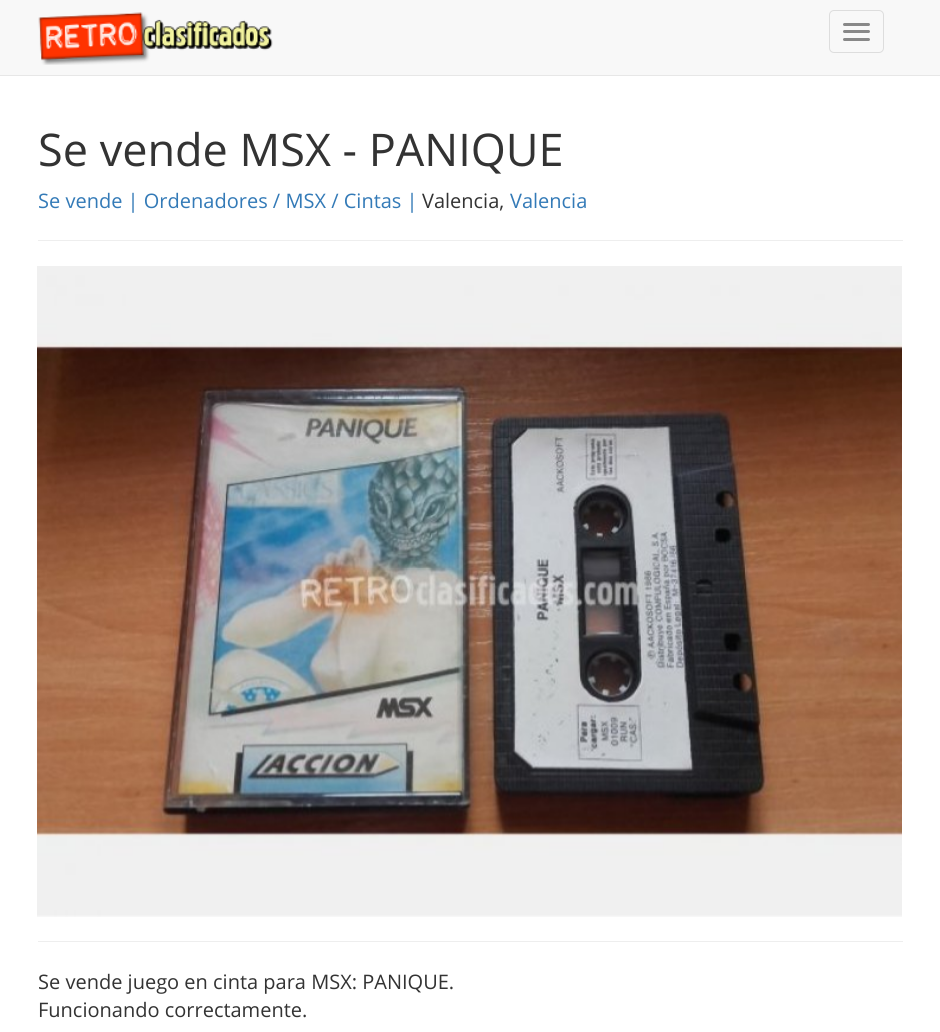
import math
import cairocffi as cairo

surface = cairo.ImageSurface(cairo.FORMAT_RGB24, 940, 1032)
cr = cairo.Context(surface)
options = cairo.FontOptions()
options.set_hint_metrics(cairo.HINT_METRICS_OFF)
options.set_hint_style(cairo.HINT_STYLE_NONE)
cr.set_font_options(options)
cr.set_miter_limit(4)


def use_color(code):
    cr.set_source_rgb(*(v / 255 for v in bytes.fromhex(code[-6:])))


def round_rect(x, y, w, h, r):
    cr.new_sub_path()
    for i, (u, v) in enumerate([(x + w - r, y + h - r), (x + r, y + h - r), (x + r, y + r), (x + w - r, y + r)]):
        cr.arc(u, v, r, i * math.pi / 2, (i + 1) * math.pi / 2)
    cr.close_path()


def picture(path, x, y, w, h):
    cr.save()
    cr.set_source_surface(cairo.ImageSurface.create_from_png(path), x, y)
    cr.rectangle(x, y, w, h)
    cr.fill()
    cr.restore()


use_color("#ffffff")
cr.paint()
use_color("#f8f8f8")
cr.rectangle(0, 0, 940, 75)
cr.fill()
use_color("#e7e7e7")
cr.rectangle(0, 75, 940, 1)
cr.fill()
picture("img1.png", 38, 12, 235, 53)
round_rect(829.5, 10.5, 54, 42, 4.5)
use_color("#dddddd")
cr.set_line_width(1)
cr.stroke()
use_color("#888888")
round_rect(843, 23, 27, 3, 1.5)
cr.fill()
round_rect(843, 30, 27, 3, 1.5)
cr.fill()
round_rect(843, 38, 27, 3, 1.5)
cr.fill()
cr.select_font_face("Open Sans")
cr.set_font_size(45)
use_color("#333333")
cr.move_to(38, 166)
cr.show_text("Se vende MSX - PANIQUE")
cr.set_font_size(20)
use_color("#337ab7")
cr.move_to(38, 208)
cr.show_text("Se vende | Ordenadores / MSX / Cintas |")
use_color("#333333")
cr.move_to(422, 208)
cr.show_text("Valencia,")
use_color("#337ab7")
cr.move_to(510, 208)
cr.show_text("Valencia")
use_color("#eeeeee")
cr.rectangle(38, 240, 865, 1)
cr.fill()
picture("img2.png", 37, 266, 865, 651)
cr.rectangle(38, 941, 865, 1)
cr.fill()
use_color("#333333")
cr.move_to(38, 989)
cr.show_text("Se vende juego en cinta para MSX: PANIQUE.")
cr.move_to(38, 1017)
cr.show_text("Funcionando correctamente.")
surface.write_to_png("result.png")
